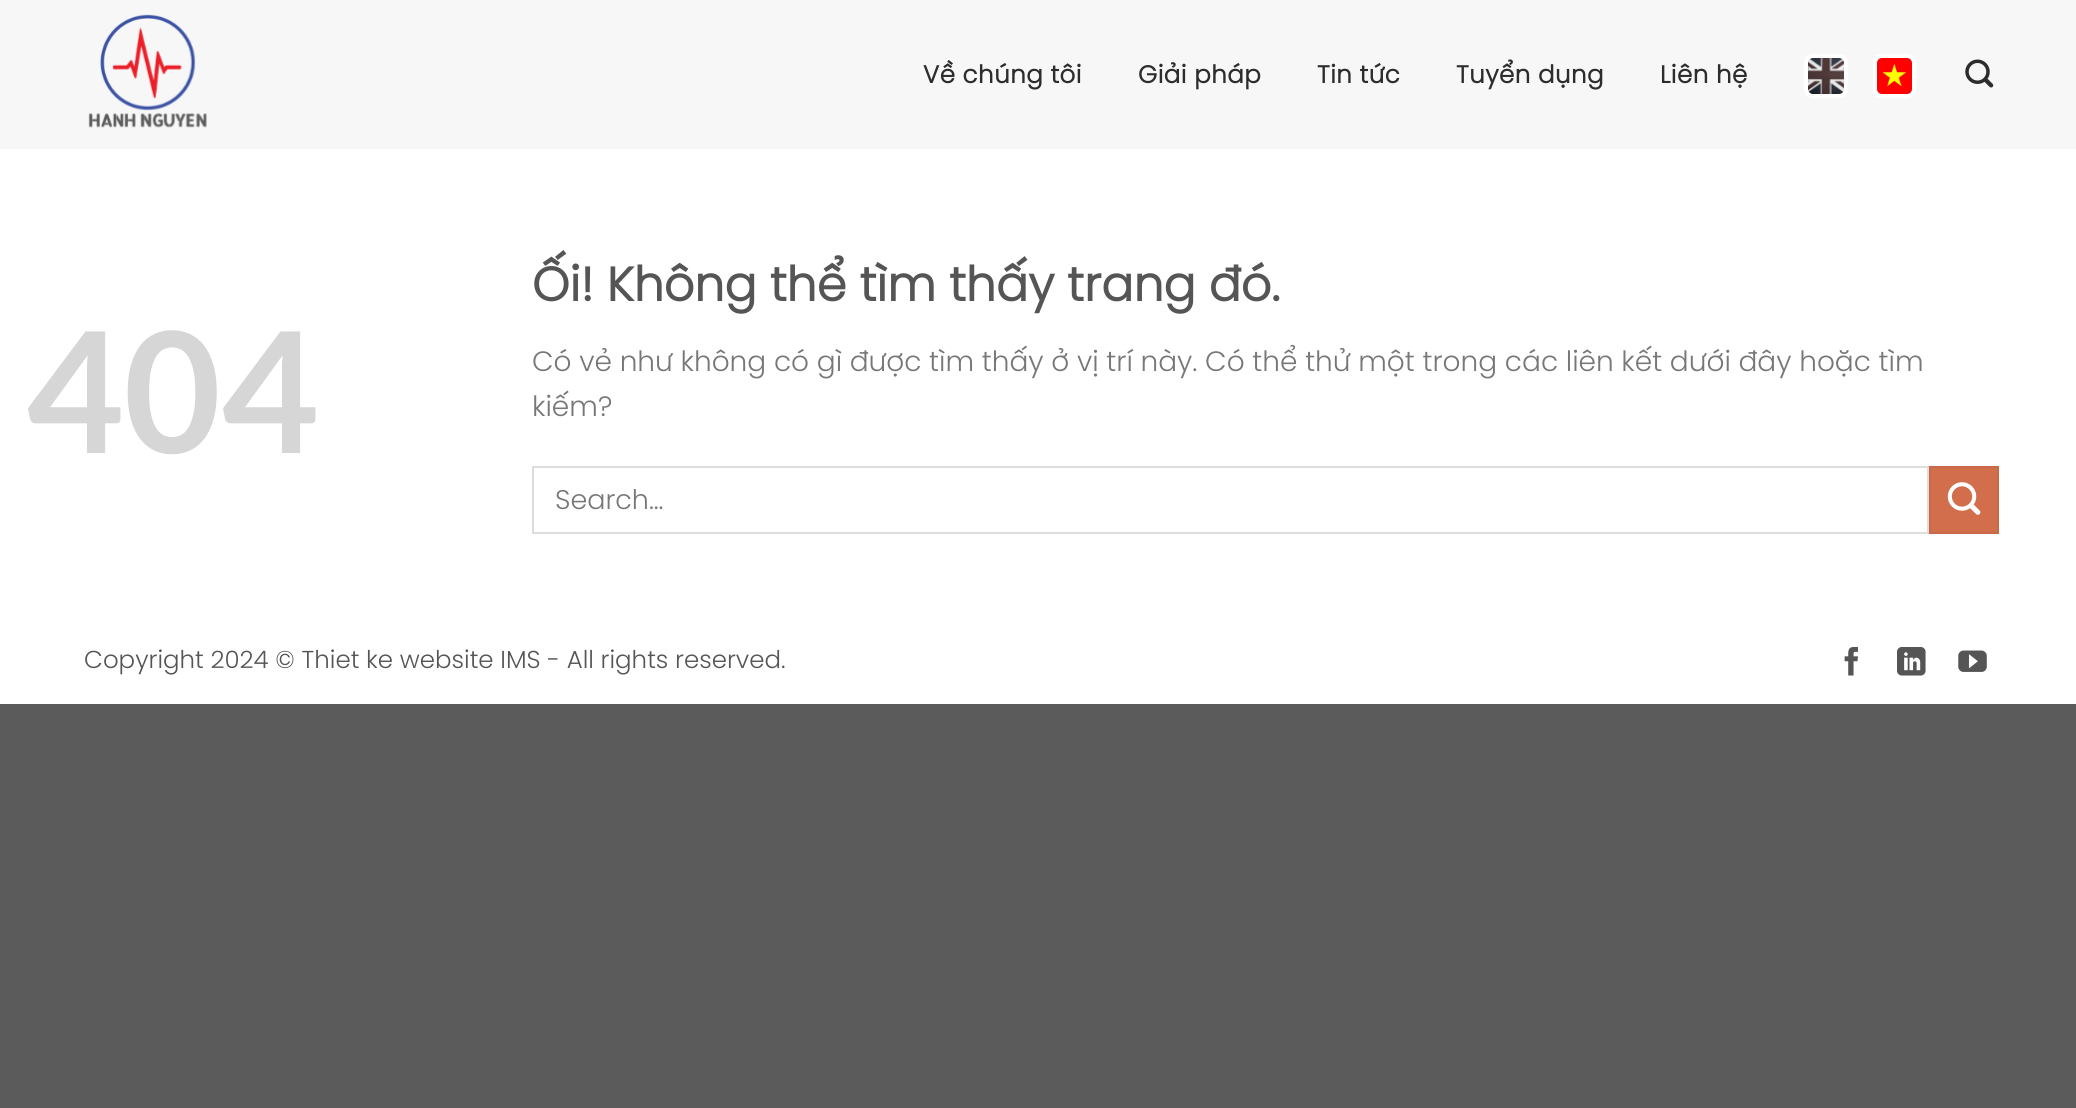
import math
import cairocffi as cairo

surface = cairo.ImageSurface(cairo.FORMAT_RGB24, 2076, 1108)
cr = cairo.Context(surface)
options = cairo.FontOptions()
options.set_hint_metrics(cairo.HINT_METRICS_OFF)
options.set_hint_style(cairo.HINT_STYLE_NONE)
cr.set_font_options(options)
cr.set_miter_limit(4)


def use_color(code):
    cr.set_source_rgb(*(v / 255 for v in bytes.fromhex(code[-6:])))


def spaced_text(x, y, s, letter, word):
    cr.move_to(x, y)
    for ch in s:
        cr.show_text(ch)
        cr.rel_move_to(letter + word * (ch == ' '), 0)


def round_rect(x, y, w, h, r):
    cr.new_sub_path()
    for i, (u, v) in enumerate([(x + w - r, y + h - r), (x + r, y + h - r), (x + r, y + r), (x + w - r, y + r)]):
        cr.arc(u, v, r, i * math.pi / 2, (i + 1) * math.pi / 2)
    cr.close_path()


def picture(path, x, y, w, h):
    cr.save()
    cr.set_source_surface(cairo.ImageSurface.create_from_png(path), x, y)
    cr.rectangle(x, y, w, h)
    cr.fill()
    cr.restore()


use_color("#5b5b5b")
cr.paint()
use_color("#ffffff")
cr.rectangle(0, 149, 2076, 555)
cr.fill()
use_color("#f7f7f7")
cr.rectangle(0, 0, 2076, 149)
cr.fill()
picture("img1.png", 88, 14, 119, 114)
cr.select_font_face("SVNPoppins", cairo.FONT_SLANT_NORMAL, cairo.FONT_WEIGHT_BOLD)
cr.set_font_size(24.5)
use_color("#2d2d2d")
spaced_text(923, 83, "Về chúng tôi", 0.5, 0)
spaced_text(1138, 83, "Giải pháp", 0.5, 0)
spaced_text(1317, 83, "Tin tức", 0.5, 0)
spaced_text(1456, 83, "Tuyển dụng", 0.5, 0)
spaced_text(1660, 83, "Liên hệ", 0.5, 0)
picture("img2.png", 1808, 58, 36, 36)
round_rect(1806, 56, 40, 40, 7)
use_color("#ffffff")
cr.set_line_width(4)
cr.stroke()
picture("img3.png", 1877, 58, 35, 36)
round_rect(1875, 56, 39, 40, 7)
cr.stroke()
picture("img4.png", 1965, 59, 29, 29)
cr.select_font_face("Lato", cairo.FONT_SLANT_NORMAL, cairo.FONT_WEIGHT_BOLD)
cr.set_font_size(168)
use_color("#d6d6d6")
cr.move_to(26, 453)
cr.show_text("404")
cr.select_font_face("SVNPoppins", cairo.FONT_SLANT_NORMAL, cairo.FONT_WEIGHT_BOLD)
cr.set_font_size(47.6)
use_color("#555555")
cr.move_to(532, 301)
cr.show_text("Ối! Không thể tìm thấy trang đó.")
cr.select_font_face("SVNPoppins Light")
cr.set_font_size(28)
use_color("#777777")
cr.move_to(532, 371)
cr.show_text("Có vẻ như không có gì được tìm thấy ở vị trí này. Có thể thử một trong các liên kết dưới đây hoặc tìm")
cr.move_to(532, 416)
cr.show_text("kiếm?")
cr.rectangle(533, 467, 1395, 66)
use_color("#dddddd")
cr.set_line_width(2)
cr.stroke()
cr.set_font_size(27)
use_color("#777777")
cr.move_to(555, 509)
cr.show_text("Search…")
use_color("#d26e4b")
cr.rectangle(1930, 467, 68, 66)
cr.fill_preserve()
use_color("#c86947")
cr.stroke()
picture("img5.png", 1947, 482, 34, 33)
cr.set_font_size(24.5)
use_color("#555555")
cr.move_to(84, 668)
cr.show_text("Copyright 2024 © Thiet ke website IMS - All rights reserved.")
picture("img6.png", 1844, 647, 14, 29)
picture("img7.png", 1897, 647, 29, 29)
picture("img8.png", 1958, 650, 29, 22)
surface.write_to_png("result.png")
